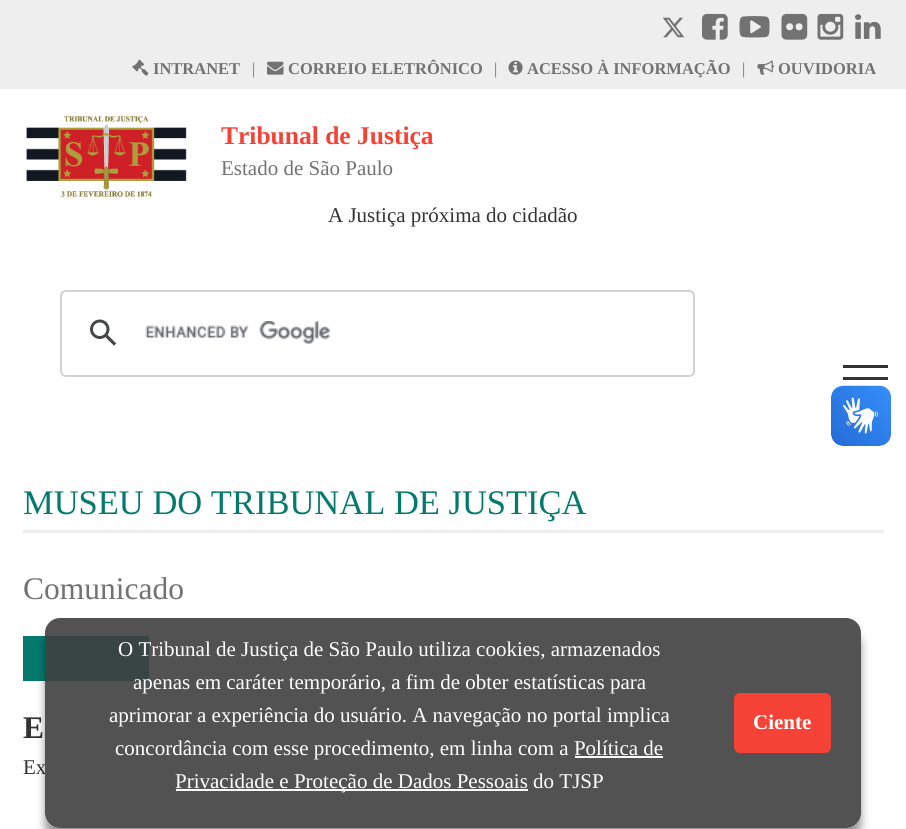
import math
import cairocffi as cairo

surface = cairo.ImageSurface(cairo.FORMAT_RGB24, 906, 829)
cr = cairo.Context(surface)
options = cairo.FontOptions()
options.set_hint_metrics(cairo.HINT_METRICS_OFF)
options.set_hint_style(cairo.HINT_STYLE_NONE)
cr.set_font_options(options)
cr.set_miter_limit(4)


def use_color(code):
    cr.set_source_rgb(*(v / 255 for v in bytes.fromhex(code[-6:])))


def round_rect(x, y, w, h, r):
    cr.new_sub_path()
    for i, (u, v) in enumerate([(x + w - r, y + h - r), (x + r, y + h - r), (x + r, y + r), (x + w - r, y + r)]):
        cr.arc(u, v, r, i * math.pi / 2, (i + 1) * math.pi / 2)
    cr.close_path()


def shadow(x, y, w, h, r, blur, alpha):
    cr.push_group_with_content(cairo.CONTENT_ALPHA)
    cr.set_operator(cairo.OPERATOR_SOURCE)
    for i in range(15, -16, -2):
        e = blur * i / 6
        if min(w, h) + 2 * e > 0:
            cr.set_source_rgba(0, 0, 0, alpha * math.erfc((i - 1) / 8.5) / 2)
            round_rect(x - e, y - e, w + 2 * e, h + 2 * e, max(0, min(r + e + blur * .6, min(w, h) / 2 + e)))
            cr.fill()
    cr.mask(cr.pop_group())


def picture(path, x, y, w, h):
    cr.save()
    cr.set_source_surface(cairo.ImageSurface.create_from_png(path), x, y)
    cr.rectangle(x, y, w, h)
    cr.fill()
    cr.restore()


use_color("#ffffff")
cr.paint()
use_color("#eeeeee")
cr.rectangle(0, 0, 906, 89)
cr.fill()
picture("img1.png", 662, 17, 23, 21)
picture("img2.png", 702, 13, 26, 27)
picture("img3.png", 739, 16, 31, 22)
picture("img4.png", 781, 13, 27, 27)
picture("img5.png", 817, 13, 27, 27)
picture("img6.png", 855, 14, 26, 25)
picture("img7.png", 132, 59, 17, 17)
cr.select_font_face("Liberation Serif", cairo.FONT_SLANT_NORMAL, cairo.FONT_WEIGHT_BOLD)
cr.set_font_size(16.5)
use_color("#727272")
cr.move_to(153, 74)
cr.show_text("INTRANET")
cr.select_font_face("Liberation Serif")
cr.move_to(252, 74)
cr.show_text("|")
picture("img8.png", 267, 61, 17, 14)
cr.select_font_face("Liberation Serif", cairo.FONT_SLANT_NORMAL, cairo.FONT_WEIGHT_BOLD)
cr.move_to(288, 74)
cr.show_text("CORREIO ELETRÔNICO")
cr.select_font_face("Liberation Serif")
cr.move_to(494, 74)
cr.show_text("|")
picture("img9.png", 508, 60, 15, 15)
cr.select_font_face("Liberation Serif", cairo.FONT_SLANT_NORMAL, cairo.FONT_WEIGHT_BOLD)
cr.move_to(527, 74)
cr.show_text("ACESSO À INFORMAÇÃO")
cr.select_font_face("Liberation Serif")
cr.move_to(742, 74)
cr.show_text("|")
picture("img10.png", 757, 60, 17, 15)
cr.select_font_face("Liberation Serif", cairo.FONT_SLANT_NORMAL, cairo.FONT_WEIGHT_BOLD)
cr.move_to(778, 74)
cr.show_text("OUVIDORIA")
picture("img11.png", 26, 116, 161, 81)
cr.set_font_size(25.5)
use_color("#f44336")
cr.move_to(221, 144)
cr.show_text("Tribunal de Justiça")
cr.select_font_face("Liberation Serif")
cr.set_font_size(21)
use_color("#727272")
cr.move_to(221, 175)
cr.show_text("Estado de São Paulo")
use_color("#333333")
cr.move_to(328, 222)
cr.show_text("A Justiça próxima do cidadão")
round_rect(61, 291, 633, 85, 5)
use_color("#d2d2d2")
cr.stroke()
picture("img12.png", 90, 319, 27, 27)
picture("img13.png", 145, 321, 185, 23)
use_color("#333333")
cr.rectangle(843, 365, 45, 3)
cr.fill()
cr.rectangle(843, 377, 45, 3)
cr.fill()
picture("img14.png", 831, 385, 60, 61)
picture("img15.png", 831, 386, 60, 60)
use_color("#eeeeee")
cr.rectangle(23, 530, 861, 3)
cr.fill()
cr.set_font_size(34.5)
use_color("#037a6c")
cr.move_to(23, 514)
cr.show_text("MUSEU DO TRIBUNAL DE JUSTIÇA")
cr.set_font_size(31.5)
use_color("#727272")
cr.move_to(23, 599)
cr.show_text("Comunicado")
use_color("#037a6c")
cr.rectangle(23, 636, 126, 45)
cr.fill()
cr.select_font_face("Liberation Serif", cairo.FONT_SLANT_NORMAL, cairo.FONT_WEIGHT_BOLD)
use_color("#333333")
cr.move_to(23, 738)
cr.show_text("E")
cr.select_font_face("Liberation Serif")
cr.set_font_size(21)
cr.move_to(23, 774)
cr.show_text("Ex")
cr.save()
cr.set_fill_rule(cairo.FILL_RULE_EVEN_ODD)
cr.new_path()
cr.move_to(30, 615)
cr.line_to(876, 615)
cr.line_to(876, 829)
cr.line_to(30, 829)
cr.close_path()
cr.move_to(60, 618)
cr.line_to(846, 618)
cr.curve_to(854.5, 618, 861, 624.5, 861, 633)
cr.line_to(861, 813)
cr.curve_to(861, 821.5, 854.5, 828, 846, 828)
cr.line_to(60, 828)
cr.curve_to(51.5, 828, 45, 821.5, 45, 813)
cr.line_to(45, 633)
cr.curve_to(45, 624.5, 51.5, 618, 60, 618)
cr.close_path()
cr.clip()
use_color("#000000")
shadow(45, 630, 816, 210, 15, 4.5, 0.41)
cr.restore()
cr.set_source_rgba(0.251, 0.251, 0.251, 0.9)
round_rect(45, 618, 816, 210, 15)
cr.fill()
use_color("#ffffff")
cr.move_to(118, 656)
cr.show_text("O Tribunal de Justiça de São Paulo utiliza cookies, armazenados")
cr.move_to(133, 689)
cr.show_text("apenas em caráter temporário, a fim de obter estatísticas para")
cr.move_to(109, 722)
cr.show_text("aprimorar a experiência do usuário. A navegação no portal implica")
cr.move_to(115, 755)
cr.show_text("concordância com esse procedimento, em linha com a Política de")
cr.rectangle(176, 789, 352, 2)
cr.fill()
cr.move_to(175, 788)
cr.show_text("Privacidade e Proteção de Dados Pessoais do TJSP")
cr.rectangle(575, 756, 88, 2)
cr.fill()
use_color("#f44336")
round_rect(734, 693, 97, 60, 6)
cr.fill()
cr.select_font_face("Liberation Serif", cairo.FONT_SLANT_NORMAL, cairo.FONT_WEIGHT_BOLD)
use_color("#ffffff")
cr.move_to(753, 729)
cr.show_text("Ciente")
surface.write_to_png("result.png")
